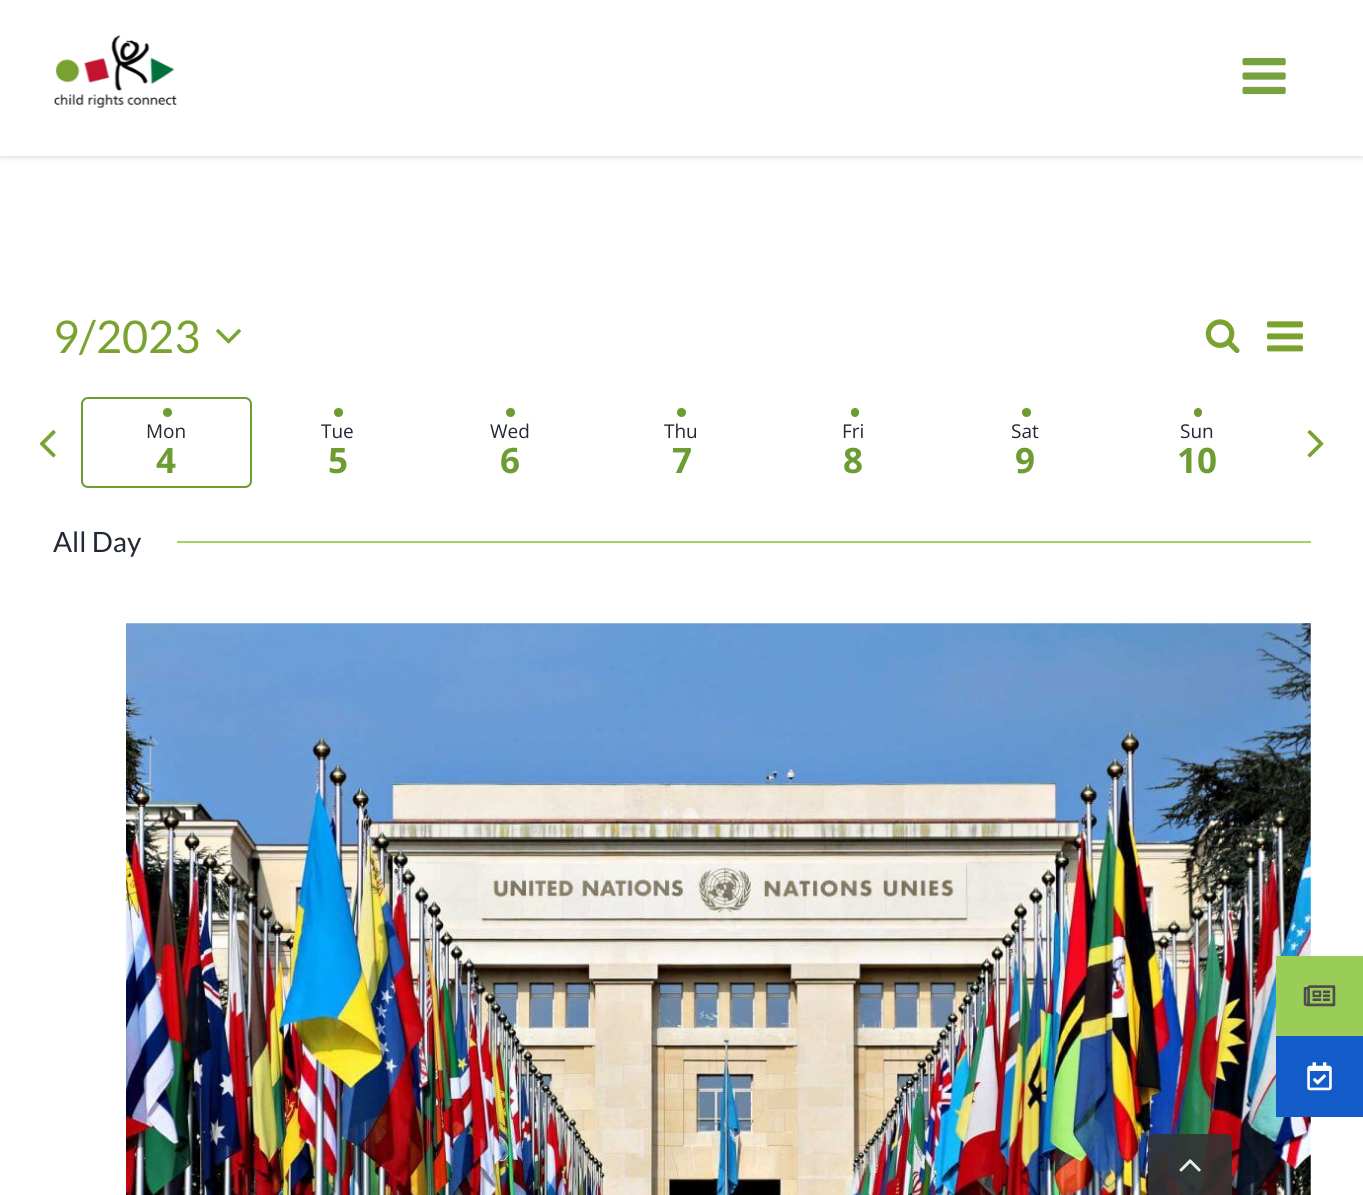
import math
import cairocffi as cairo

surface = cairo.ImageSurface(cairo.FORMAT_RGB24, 1363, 1195)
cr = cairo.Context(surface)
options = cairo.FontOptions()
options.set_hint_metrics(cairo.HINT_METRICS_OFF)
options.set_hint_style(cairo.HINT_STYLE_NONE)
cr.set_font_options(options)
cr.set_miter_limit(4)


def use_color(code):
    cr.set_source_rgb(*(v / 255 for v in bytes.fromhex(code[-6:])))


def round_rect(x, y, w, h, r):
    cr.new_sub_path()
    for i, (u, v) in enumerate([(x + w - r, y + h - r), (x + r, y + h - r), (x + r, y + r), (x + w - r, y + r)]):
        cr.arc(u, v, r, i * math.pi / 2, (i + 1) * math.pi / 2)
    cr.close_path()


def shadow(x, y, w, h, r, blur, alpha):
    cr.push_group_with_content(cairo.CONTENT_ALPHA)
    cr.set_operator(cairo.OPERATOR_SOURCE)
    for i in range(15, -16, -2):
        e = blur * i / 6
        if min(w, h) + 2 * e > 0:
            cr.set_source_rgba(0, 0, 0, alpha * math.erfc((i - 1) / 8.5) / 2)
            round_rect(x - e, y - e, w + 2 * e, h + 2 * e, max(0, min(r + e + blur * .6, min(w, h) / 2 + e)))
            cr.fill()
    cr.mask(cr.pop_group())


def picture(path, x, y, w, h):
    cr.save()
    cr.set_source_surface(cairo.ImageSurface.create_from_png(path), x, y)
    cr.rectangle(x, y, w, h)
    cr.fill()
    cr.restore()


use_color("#ffffff")
cr.paint()
use_color("#000000")
shadow(0, 2, 1363, 156, 0, 2.5, 0.12)
use_color("#ffffff")
cr.rectangle(0, 0, 1363, 156)
cr.fill()
picture("img1.png", 54, 35, 123, 73)
picture("img2.png", 1242, 58, 44, 37)
cr.select_font_face("Lato")
cr.set_font_size(45)
use_color("#79a22f")
cr.move_to(53, 353)
cr.show_text("9/2023")
picture("img3.png", 216, 329, 25, 15)
picture("img4.png", 1205, 319, 35, 35)
picture("img5.png", 1267, 321, 36, 31)
round_rect(82, 398, 169, 89, 6)
use_color("#6d9c32")
cr.stroke()
cr.arc(167.5, 412.5, 4.5, 0, 2 * math.pi)
cr.fill()
cr.select_font_face("Open Sans")
cr.set_font_size(19)
use_color("#212934")
cr.move_to(146, 438)
cr.show_text("Mon")
cr.select_font_face("Open Sans", cairo.FONT_SLANT_NORMAL, cairo.FONT_WEIGHT_BOLD)
cr.set_font_size(35)
use_color("#6d9c32")
cr.move_to(156, 473)
cr.show_text("4")
cr.new_path()
cr.arc(338.5, 412.5, 4.5, 0, 2 * math.pi)
cr.fill()
cr.select_font_face("Open Sans")
cr.set_font_size(19)
use_color("#212934")
cr.move_to(321, 438)
cr.show_text("Tue")
cr.select_font_face("Open Sans", cairo.FONT_SLANT_NORMAL, cairo.FONT_WEIGHT_BOLD)
cr.set_font_size(35)
use_color("#6d9c32")
cr.move_to(328, 473)
cr.show_text("5")
cr.new_path()
cr.arc(510.5, 412.5, 4.5, 0, 2 * math.pi)
cr.fill()
cr.select_font_face("Open Sans")
cr.set_font_size(19)
use_color("#212934")
cr.move_to(490, 438)
cr.show_text("Wed")
cr.select_font_face("Open Sans", cairo.FONT_SLANT_NORMAL, cairo.FONT_WEIGHT_BOLD)
cr.set_font_size(35)
use_color("#6d9c32")
cr.move_to(500, 473)
cr.show_text("6")
cr.new_path()
cr.arc(681.5, 412.5, 4.5, 0, 2 * math.pi)
cr.fill()
cr.select_font_face("Open Sans")
cr.set_font_size(19)
use_color("#212934")
cr.move_to(664, 438)
cr.show_text("Thu")
cr.select_font_face("Open Sans", cairo.FONT_SLANT_NORMAL, cairo.FONT_WEIGHT_BOLD)
cr.set_font_size(35)
use_color("#6d9c32")
cr.move_to(672, 473)
cr.show_text("7")
round_rect(851, 408, 8, 9, 4)
cr.fill()
cr.select_font_face("Open Sans")
cr.set_font_size(19)
use_color("#212934")
cr.move_to(842, 438)
cr.show_text("Fri")
cr.select_font_face("Open Sans", cairo.FONT_SLANT_NORMAL, cairo.FONT_WEIGHT_BOLD)
cr.set_font_size(35)
use_color("#6d9c32")
cr.move_to(843, 473)
cr.show_text("8")
cr.new_path()
cr.arc(1026.5, 412.5, 4.5, 0, 2 * math.pi)
cr.fill()
cr.select_font_face("Open Sans")
cr.set_font_size(19)
use_color("#212934")
cr.move_to(1011, 438)
cr.show_text("Sat")
cr.select_font_face("Open Sans", cairo.FONT_SLANT_NORMAL, cairo.FONT_WEIGHT_BOLD)
cr.set_font_size(35)
use_color("#6d9c32")
cr.move_to(1015, 473)
cr.show_text("9")
round_rect(1194, 408, 8, 9, 4)
cr.fill()
cr.select_font_face("Open Sans")
cr.set_font_size(19)
use_color("#212934")
cr.move_to(1180, 438)
cr.show_text("Sun")
cr.select_font_face("Open Sans", cairo.FONT_SLANT_NORMAL, cairo.FONT_WEIGHT_BOLD)
cr.set_font_size(35)
use_color("#6d9c32")
cr.move_to(1177, 473)
cr.show_text("10")
picture("img6.png", 39, 430, 17, 28)
picture("img7.png", 1307, 430, 17, 28)
cr.select_font_face("Lato")
cr.set_font_size(28)
use_color("#212934")
cr.move_to(53, 552)
cr.show_text("All Day")
use_color("#9fd35b")
cr.rectangle(177, 541, 1134, 2)
cr.fill()
picture("img8.png", 126, 623, 1185, 572)
use_color("#9acd58")
cr.rectangle(1276, 956, 87, 80)
cr.fill()
picture("img9.png", 1303, 985, 33, 22)
use_color("#125bc9")
cr.rectangle(1276, 1036, 87, 81)
cr.fill()
picture("img10.png", 1307, 1062, 25, 29)
cr.set_source_rgba(0.2, 0.2, 0.2, 0.9)
cr.new_path()
cr.move_to(1155, 1134)
cr.line_to(1225, 1134)
cr.curve_to(1229, 1134, 1232, 1137, 1232, 1141)
cr.line_to(1232, 1195)
cr.line_to(1148, 1195)
cr.line_to(1148, 1141)
cr.curve_to(1148, 1137, 1151, 1134, 1155, 1134)
cr.close_path()
cr.fill()
picture("img11.png", 1179, 1159, 22, 13)
surface.write_to_png("result.png")
